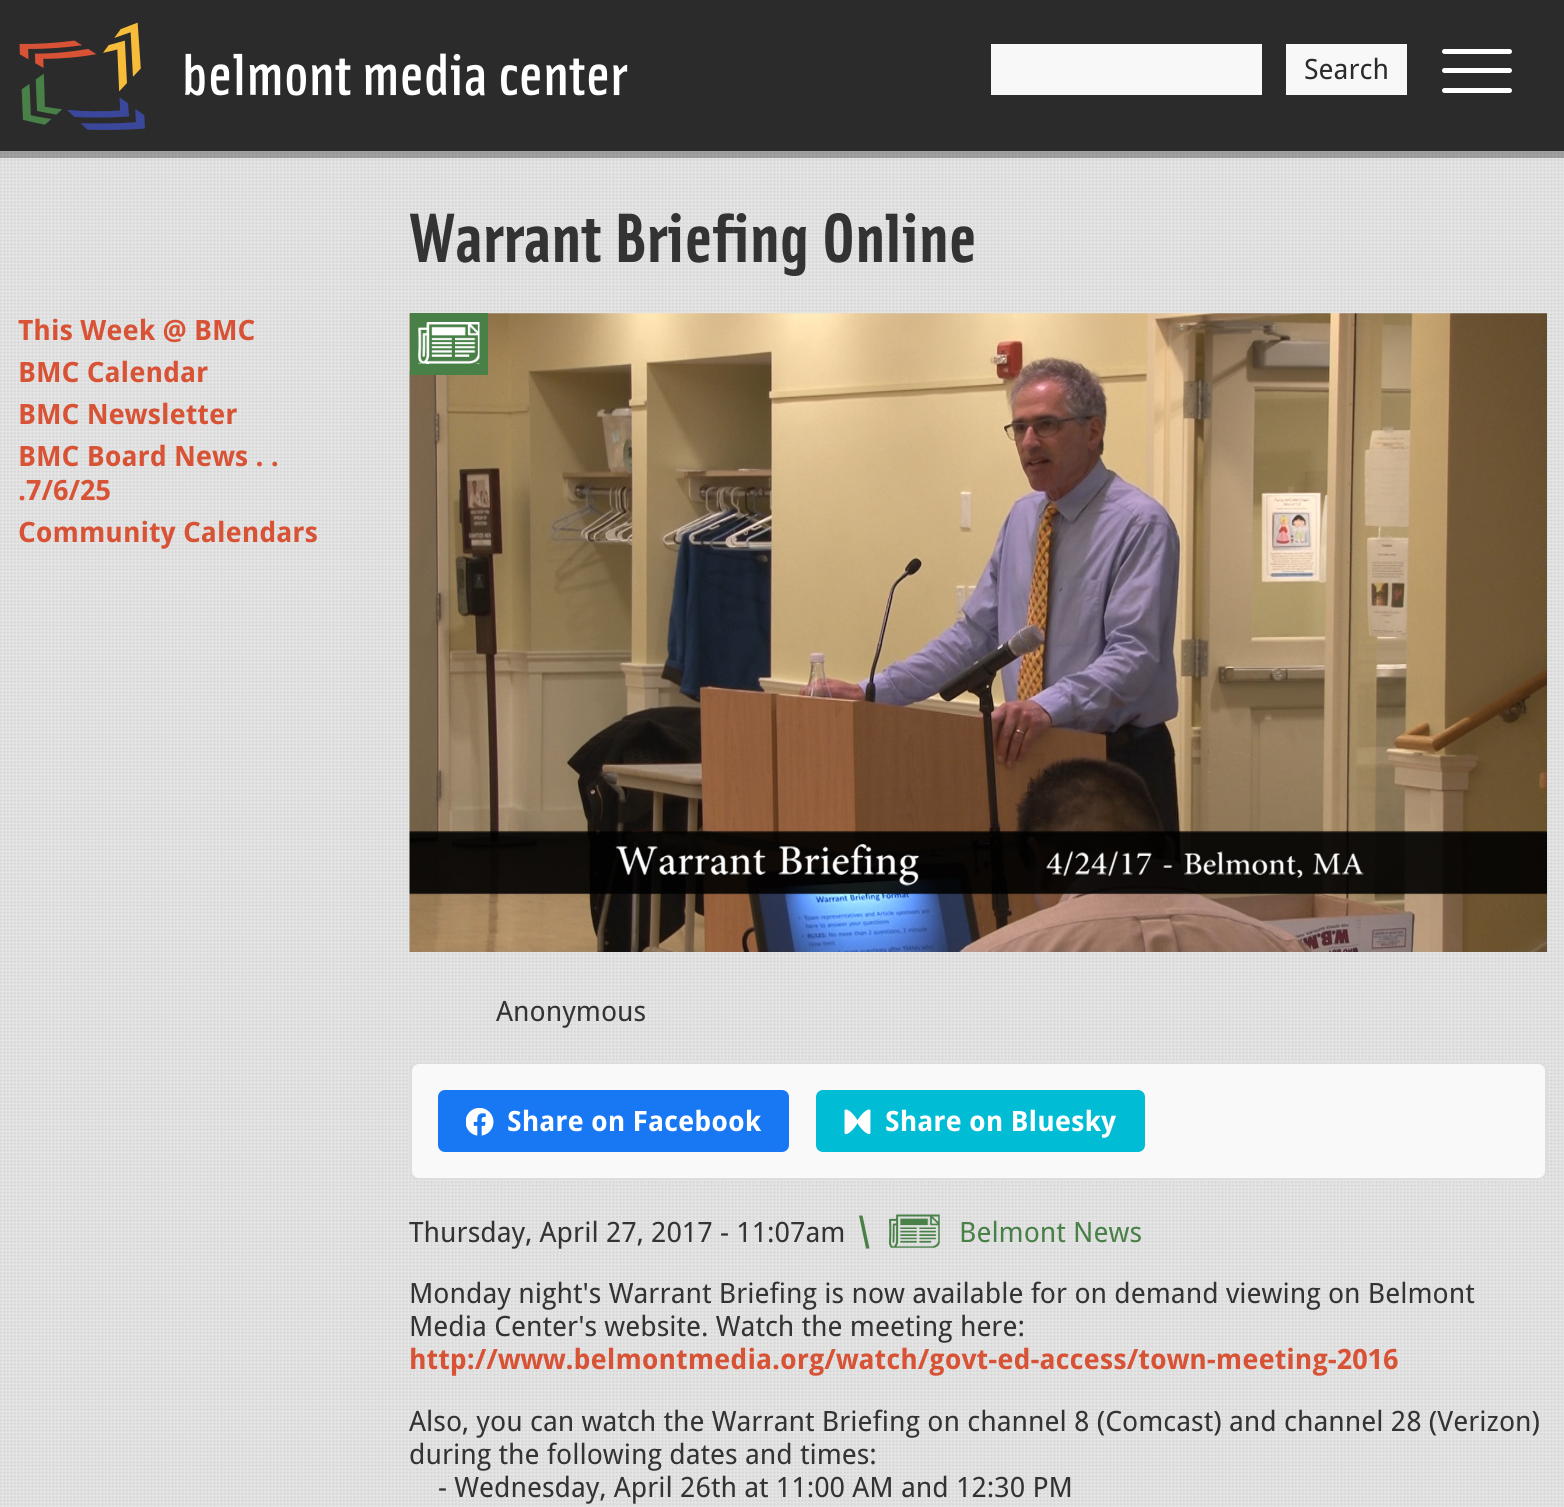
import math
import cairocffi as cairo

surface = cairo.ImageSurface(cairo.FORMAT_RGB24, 1564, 1507)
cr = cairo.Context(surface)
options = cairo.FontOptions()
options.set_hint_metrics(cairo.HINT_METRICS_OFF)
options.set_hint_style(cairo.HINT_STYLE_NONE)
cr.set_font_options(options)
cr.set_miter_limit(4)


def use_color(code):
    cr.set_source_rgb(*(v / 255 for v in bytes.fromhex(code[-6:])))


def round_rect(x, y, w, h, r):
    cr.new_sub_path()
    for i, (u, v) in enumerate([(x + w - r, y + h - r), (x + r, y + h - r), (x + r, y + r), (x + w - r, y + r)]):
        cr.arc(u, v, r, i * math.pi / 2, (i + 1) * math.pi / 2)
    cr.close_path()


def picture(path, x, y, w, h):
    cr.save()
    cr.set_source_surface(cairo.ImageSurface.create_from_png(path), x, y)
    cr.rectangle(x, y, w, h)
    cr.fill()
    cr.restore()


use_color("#ffffff")
cr.paint()
picture("img1.png", 0, 151, 1564, 1356)
cr.set_source_rgba(0, 0, 0, 0.3)
cr.new_path()
cr.move_to(0, 150)
cr.line_to(0, 158)
cr.line_to(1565, 158)
cr.line_to(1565, 7)
cr.line_to(1564, 7)
cr.line_to(1564, 150)
cr.close_path()
cr.fill()
use_color("#2b2b2b")
cr.rectangle(0, 0, 1564, 151)
cr.fill()
picture("img2.png", 19, 22, 609, 108)
use_color("#f8f8f8")
cr.rectangle(991, 44, 271, 51)
cr.fill()
cr.rectangle(1286, 44, 121, 51)
cr.fill()
cr.select_font_face("Droid Sans")
cr.set_font_size(28)
use_color("#2b2b2b")
cr.move_to(1304, 79)
cr.show_text("Search")
use_color("#ffffff")
round_rect(1442, 49, 70, 5, 2.5)
cr.fill()
round_rect(1442, 68, 70, 5, 2.5)
cr.fill()
round_rect(1442, 88, 70, 5, 2.5)
cr.fill()
cr.select_font_face("Droid Sans", cairo.FONT_SLANT_NORMAL, cairo.FONT_WEIGHT_BOLD)
use_color("#d85335")
cr.move_to(18, 340)
cr.show_text("This Week @ BMC")
cr.move_to(18, 382)
cr.show_text("BMC Calendar")
cr.move_to(18, 424)
cr.show_text("BMC Newsletter")
cr.move_to(18, 466)
cr.show_text("BMC Board News . .")
cr.move_to(18, 500)
cr.show_text(".7/6/25")
cr.move_to(18, 542)
cr.show_text("Community Calendars")
cr.select_font_face("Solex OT", cairo.FONT_SLANT_NORMAL, cairo.FONT_WEIGHT_BOLD)
cr.set_font_size(70)
use_color("#333333")
cr.move_to(409, 262)
cr.show_text("Warrant Briefing Online")
picture("img3.png", 409, 313, 1138, 639)
use_color("#498047")
cr.rectangle(410, 313, 78, 62)
cr.fill()
picture("img4.png", 418, 322, 62, 42)
cr.select_font_face("Droid Sans")
cr.set_font_size(28)
use_color("#333333")
cr.move_to(496, 1021)
cr.show_text("Anonymous")
use_color("#f9f9f9")
round_rect(411, 1063, 1135, 116, 8)
cr.fill_preserve()
use_color("#dddddd")
cr.stroke()
use_color("#1877f2")
round_rect(438, 1090, 351, 62, 7)
cr.fill()
picture("img5.png", 466, 1108, 28, 28)
cr.select_font_face("Droid Sans", cairo.FONT_SLANT_NORMAL, cairo.FONT_WEIGHT_BOLD)
use_color("#ffffff")
cr.move_to(507, 1131)
cr.show_text("Share on Facebook")
use_color("#00bcd4")
round_rect(816, 1090, 329, 62, 7)
cr.fill()
picture("img6.png", 844, 1109, 27, 25)
use_color("#ffffff")
cr.move_to(885, 1131)
cr.show_text("Share on Bluesky")
cr.select_font_face("Droid Sans")
use_color("#333333")
cr.move_to(409, 1242)
cr.show_text("Thursday, April 27, 2017 - 11:07am")
use_color("#498047")
cr.new_path()
cr.move_to(859, 1215.5)
cr.line_to(862.5, 1215.5)
cr.line_to(869.5, 1248.5)
cr.line_to(866, 1248.5)
cr.close_path()
cr.fill()
picture("img7.png", 889, 1214, 51, 34)
cr.move_to(959, 1242)
cr.show_text("Belmont News")
use_color("#333333")
cr.move_to(409, 1303)
cr.show_text("Monday night's Warrant Briefing is now available for on demand viewing on Belmont")
cr.move_to(409, 1336)
cr.show_text("Media Center's website. Watch the meeting here:")
cr.select_font_face("Droid Sans", cairo.FONT_SLANT_NORMAL, cairo.FONT_WEIGHT_BOLD)
use_color("#d85335")
cr.move_to(409, 1369)
cr.show_text("http://www.belmontmedia.org/watch/govt-ed-access/town-meeting-2016")
cr.select_font_face("Droid Sans")
use_color("#333333")
cr.move_to(409, 1431)
cr.show_text("Also, you can watch the Warrant Briefing on channel 8 (Comcast) and channel 28 (Verizon)")
cr.move_to(409, 1464)
cr.show_text("during the following dates and times:")
cr.move_to(438, 1497)
cr.show_text("- Wednesday, April 26th at 11:00 AM and 12:30 PM")
surface.write_to_png("result.png")
